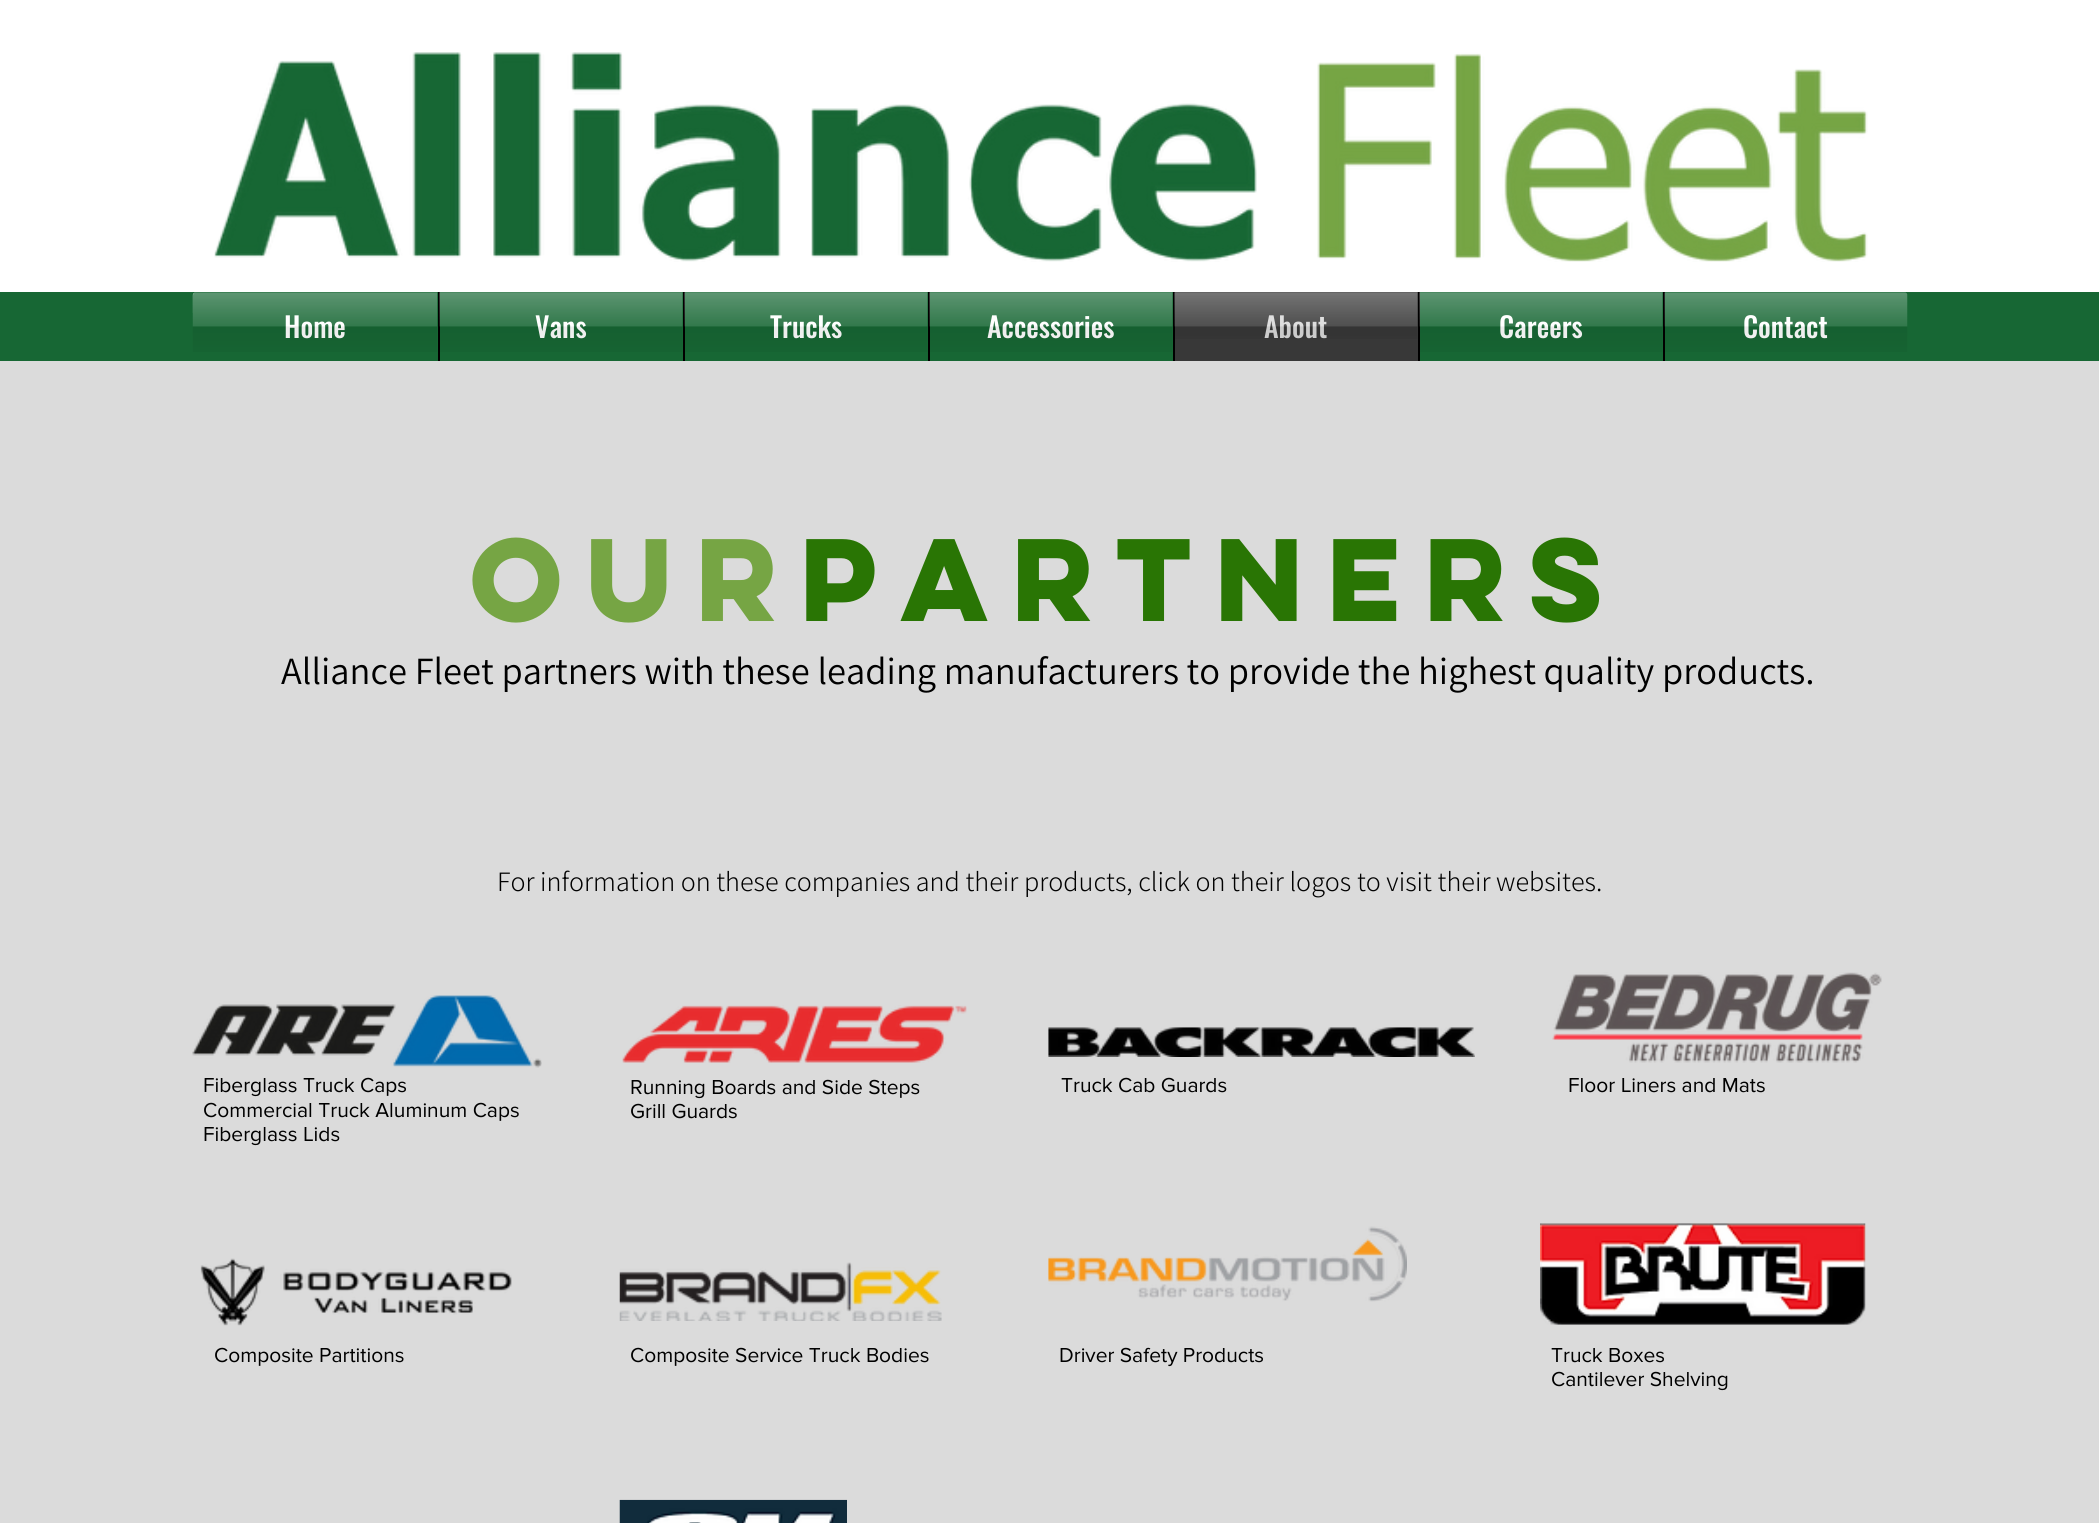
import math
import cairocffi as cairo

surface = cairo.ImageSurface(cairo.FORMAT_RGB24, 2099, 1523)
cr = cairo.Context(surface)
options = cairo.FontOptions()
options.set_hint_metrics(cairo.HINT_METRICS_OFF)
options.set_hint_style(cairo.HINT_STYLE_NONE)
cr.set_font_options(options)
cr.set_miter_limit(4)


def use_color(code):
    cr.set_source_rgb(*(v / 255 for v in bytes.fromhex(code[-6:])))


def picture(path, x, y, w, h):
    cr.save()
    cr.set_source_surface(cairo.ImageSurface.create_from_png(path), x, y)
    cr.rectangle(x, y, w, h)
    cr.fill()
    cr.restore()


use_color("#dbdbdb")
cr.paint()
use_color("#ffffff")
cr.rectangle(0, 0, 2099, 292)
cr.fill()
picture("img1.png", 214, 52, 1654, 210)
use_color("#176734")
cr.rectangle(0, 292, 2099, 69)
cr.fill()
picture("img2.png", 192, 292, 1716, 21)
cr.new_path()
cr.move_to(197, 292)
cr.line_to(438, 292)
cr.line_to(438, 361)
cr.line_to(197, 361)
cr.curve_to(195, 361, 193, 359, 193, 357)
cr.line_to(193, 296)
cr.curve_to(193, 294, 195, 292, 197, 292)
cr.close_path()
cr.fill()
cr.select_font_face("Oswald Medium")
cr.set_font_size(28)
use_color("#ffffff")
cr.move_to(284, 338)
cr.show_text("Home")
picture("img3.png", 192, 292, 246, 60)
use_color("#176734")
cr.rectangle(440, 292, 243, 21)
cr.fill()
use_color("#000000")
cr.rectangle(438, 292, 2, 69)
cr.fill()
use_color("#ffffff")
cr.move_to(535, 338)
cr.show_text("Vans")
picture("img4.png", 439, 292, 244, 60)
use_color("#176734")
cr.rectangle(685, 292, 243, 21)
cr.fill()
use_color("#000000")
cr.rectangle(683, 292, 2, 69)
cr.fill()
use_color("#ffffff")
cr.move_to(770, 338)
cr.show_text("Trucks")
picture("img5.png", 684, 292, 244, 60)
use_color("#176734")
cr.rectangle(930, 292, 243, 21)
cr.fill()
use_color("#000000")
cr.rectangle(928, 292, 2, 69)
cr.fill()
use_color("#ffffff")
cr.move_to(987, 338)
cr.show_text("Accessories")
picture("img6.png", 929, 292, 244, 60)
use_color("#383838")
cr.rectangle(1175, 292, 243, 69)
cr.fill()
use_color("#000000")
cr.rectangle(1173, 292, 2, 69)
cr.fill()
use_color("#d9d9d9")
cr.move_to(1264, 338)
cr.show_text("About")
picture("img7.png", 1174, 292, 244, 47)
use_color("#176734")
cr.rectangle(1420, 292, 243, 21)
cr.fill()
use_color("#000000")
cr.rectangle(1418, 292, 2, 69)
cr.fill()
use_color("#ffffff")
cr.move_to(1499, 338)
cr.show_text("Careers")
picture("img8.png", 1419, 292, 244, 60)
use_color("#176734")
cr.new_path()
cr.move_to(1663, 292)
cr.line_to(1904, 292)
cr.curve_to(1906, 292, 1908, 294, 1908, 296)
cr.line_to(1908, 357)
cr.curve_to(1908, 359, 1906, 361, 1904, 361)
cr.line_to(1663, 361)
cr.close_path()
cr.fill()
use_color("#000000")
cr.rectangle(1663, 292, 2, 69)
cr.fill()
use_color("#ffffff")
cr.move_to(1743, 338)
cr.show_text("Contact")
picture("img9.png", 1664, 292, 244, 60)
cr.select_font_face("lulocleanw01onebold", cairo.FONT_SLANT_NORMAL, cairo.FONT_WEIGHT_BOLD)
cr.set_font_size(105)
use_color("#76a544")
cr.move_to(470, 621)
cr.show_text("our")
use_color("#297504")
cr.move_to(800, 621)
cr.show_text("Partners")
cr.select_font_face("Assistant")
cr.set_font_size(38.5)
use_color("#000000")
cr.move_to(281, 684)
cr.show_text("Alliance Fleet partners with these leading manufacturers to provide the highest quality products.")
cr.select_font_face("Assistant Light")
cr.set_font_size(28)
cr.move_to(497, 891)
cr.show_text("For information on these companies and their products, click on their logos to visit their websites.")
picture("img10.png", 192, 995, 350, 73)
cr.select_font_face("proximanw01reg")
cr.set_font_size(21)
cr.move_to(203, 1092)
cr.show_text("Fiberglass Truck Caps")
cr.move_to(203, 1117)
cr.show_text("Commercial Truck Aluminum Caps")
cr.move_to(203, 1141)
cr.show_text("Fiberglass Lids")
picture("img11.png", 622, 1005, 345, 58)
cr.move_to(630, 1094)
cr.show_text("Running Boards and Side Steps")
cr.move_to(630, 1118)
cr.show_text("Grill Guards")
picture("img12.png", 1048, 1027, 427, 30)
cr.move_to(1061, 1092)
cr.show_text("Truck Cab Guards")
picture("img13.png", 1552, 972, 330, 91)
cr.move_to(1568, 1092)
cr.show_text("Floor Liners and Mats")
picture("img14.png", 200, 1258, 312, 68)
cr.move_to(214, 1362)
cr.show_text("Composite Partitions")
picture("img15.png", 619, 1262, 323, 59)
cr.move_to(630, 1362)
cr.show_text("Composite Service Truck Bodies")
picture("img16.png", 1048, 1226, 359, 76)
cr.move_to(1059, 1362)
cr.show_text("Driver Safety Products")
picture("img17.png", 1540, 1223, 326, 102)
cr.move_to(1551, 1362)
cr.show_text("Truck Boxes")
cr.move_to(1551, 1386)
cr.show_text("Cantilever Shelving")
picture("img18.png", 619, 1499, 228, 24)
surface.write_to_png("result.png")
